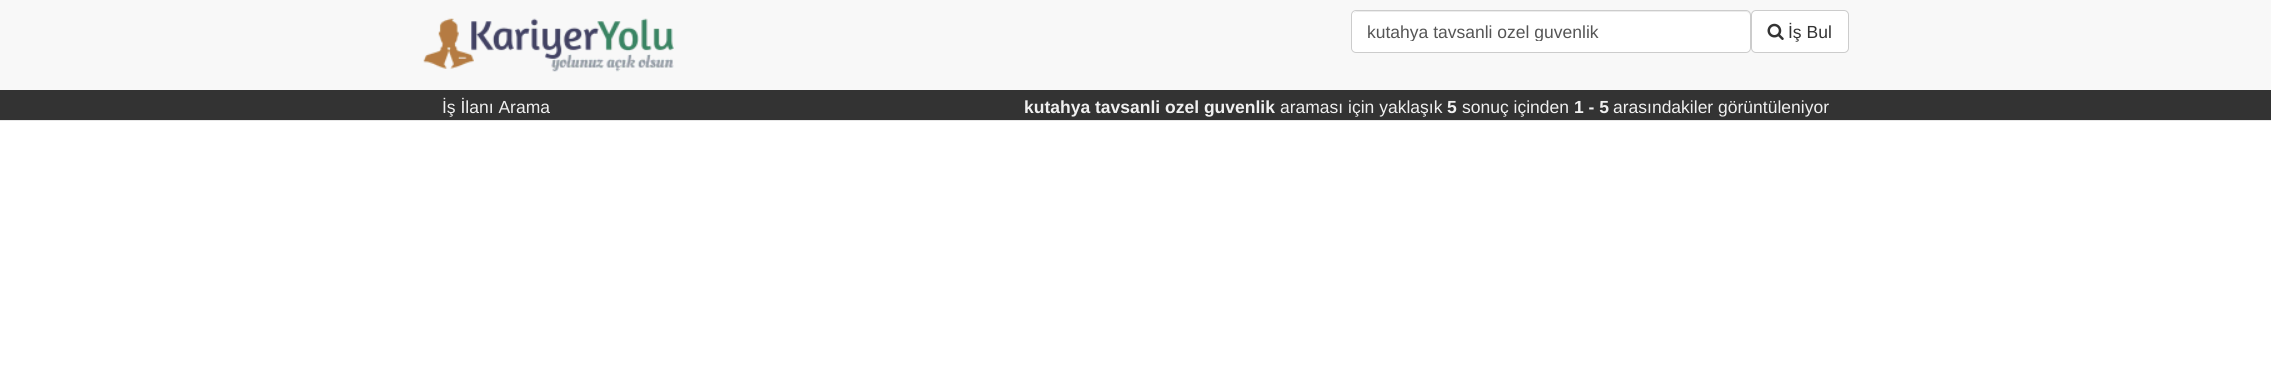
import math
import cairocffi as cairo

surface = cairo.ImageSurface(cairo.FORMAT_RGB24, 2271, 376)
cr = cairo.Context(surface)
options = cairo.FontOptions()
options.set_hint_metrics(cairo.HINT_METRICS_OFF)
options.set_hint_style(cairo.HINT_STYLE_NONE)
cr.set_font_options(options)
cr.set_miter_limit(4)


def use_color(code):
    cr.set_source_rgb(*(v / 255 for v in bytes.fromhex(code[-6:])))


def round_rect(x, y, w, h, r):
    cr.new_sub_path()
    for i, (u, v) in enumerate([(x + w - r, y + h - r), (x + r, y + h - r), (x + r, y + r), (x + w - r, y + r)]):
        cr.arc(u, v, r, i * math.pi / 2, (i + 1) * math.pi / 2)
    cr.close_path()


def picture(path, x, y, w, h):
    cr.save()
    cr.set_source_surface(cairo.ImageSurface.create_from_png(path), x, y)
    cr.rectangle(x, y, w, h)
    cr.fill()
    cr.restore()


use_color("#ffffff")
cr.paint()
use_color("#f8f8f8")
cr.rectangle(0, 0, 2271, 90)
cr.fill()
use_color("#e7e7e7")
cr.rectangle(0, 120, 2271, 1)
cr.fill()
picture("img1.png", 423, 18, 251, 54)
use_color("#ffffff")
round_rect(1351, 10, 400, 43, 5)
cr.fill()
use_color("#ececec")
cr.new_path()
cr.move_to(1356, 12)
cr.line_to(1746, 12)
cr.curve_to(1748, 12, 1750, 14, 1750, 16)
cr.line_to(1750, 15)
cr.curve_to(1750, 13, 1748, 11, 1746, 11)
cr.line_to(1357, 11)
cr.curve_to(1356, 11, 1354, 12, 1354, 13)
cr.close_path()
cr.fill()
round_rect(1351.5, 10.5, 399, 42, 4.5)
use_color("#cccccc")
cr.set_line_width(1)
cr.stroke()
cr.save()
cr.rectangle(1368, 21, 367, 20)
cr.clip()
cr.select_font_face("Liberation Sans")
cr.set_font_size(17.5)
use_color("#555555")
cr.move_to(1367, 38)
cr.show_text("kutahya tavsanli ozel guvenlik")
cr.restore()
use_color("#ffffff")
round_rect(1751.5, 10.5, 97, 42, 4.5)
cr.fill_preserve()
use_color("#cccccc")
cr.stroke()
picture("img2.png", 1767, 23, 17, 17)
cr.select_font_face("Liberation Sans")
cr.set_font_size(17.5)
use_color("#333333")
cr.move_to(1788, 38)
cr.show_text("İş Bul")
cr.rectangle(0, 90, 2271, 30)
cr.fill()
use_color("#f0f0f0")
cr.move_to(442, 113)
cr.show_text("İş İlanı Arama")
cr.select_font_face("Liberation Sans", cairo.FONT_SLANT_NORMAL, cairo.FONT_WEIGHT_BOLD)
cr.move_to(1024, 113)
cr.show_text("kutahya tavsanli ozel guvenlik")
cr.select_font_face("Liberation Sans")
cr.move_to(1280, 113)
cr.show_text("araması için yaklaşık")
cr.select_font_face("Liberation Sans", cairo.FONT_SLANT_NORMAL, cairo.FONT_WEIGHT_BOLD)
cr.move_to(1447, 113)
cr.show_text("5")
cr.select_font_face("Liberation Sans")
cr.move_to(1462, 113)
cr.show_text("sonuç içinden")
cr.select_font_face("Liberation Sans", cairo.FONT_SLANT_NORMAL, cairo.FONT_WEIGHT_BOLD)
cr.move_to(1574, 113)
cr.show_text("1 - 5")
cr.select_font_face("Liberation Sans")
cr.move_to(1613, 113)
cr.show_text("arasındakiler görüntüleniyor")
surface.write_to_png("result.png")
